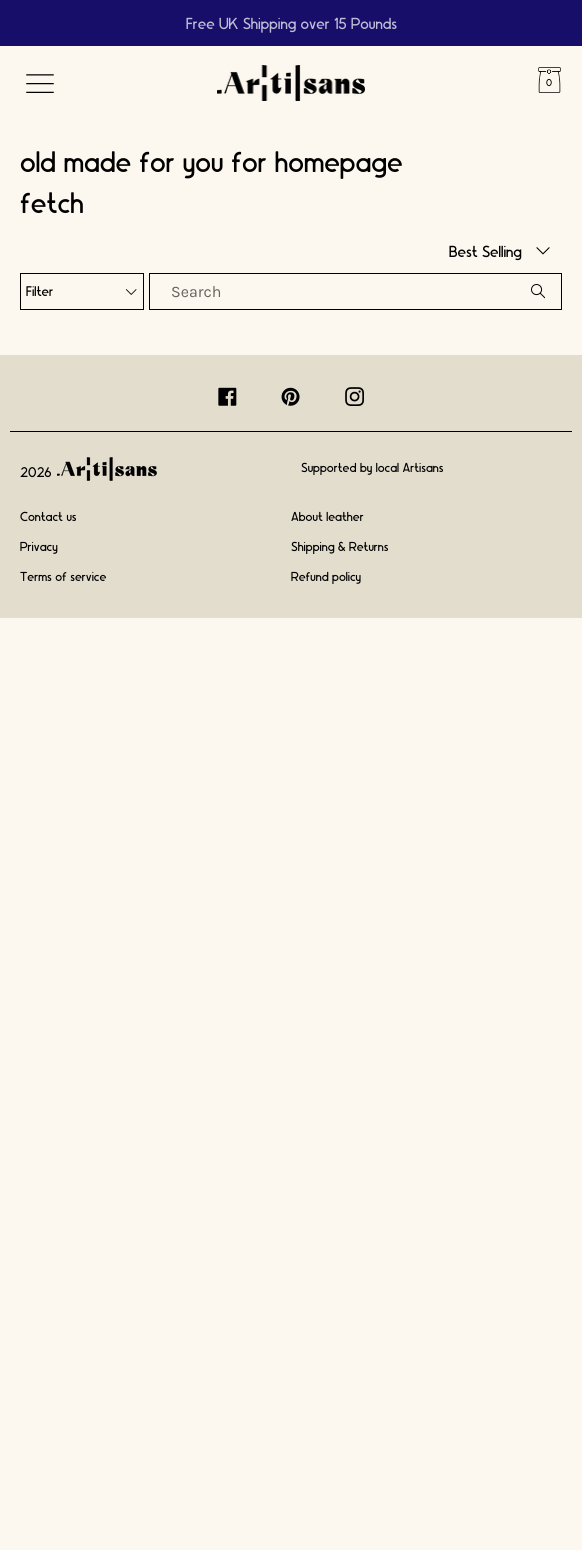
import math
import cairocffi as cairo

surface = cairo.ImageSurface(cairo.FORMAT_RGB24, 582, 1550)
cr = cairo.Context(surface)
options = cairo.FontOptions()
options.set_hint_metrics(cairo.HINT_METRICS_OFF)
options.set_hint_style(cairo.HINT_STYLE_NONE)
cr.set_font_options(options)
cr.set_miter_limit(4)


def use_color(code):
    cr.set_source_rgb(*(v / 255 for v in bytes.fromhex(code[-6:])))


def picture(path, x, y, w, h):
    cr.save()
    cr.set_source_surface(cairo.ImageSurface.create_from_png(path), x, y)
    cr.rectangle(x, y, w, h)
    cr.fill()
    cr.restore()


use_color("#fcf8ef")
cr.paint()
use_color("#160e69")
cr.rectangle(0, 0, 582, 46)
cr.fill()
cr.select_font_face("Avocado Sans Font")
cr.set_font_size(16)
use_color("#bebcd5")
cr.move_to(186, 29)
cr.show_text("Free UK Shipping over 15 Pounds")
picture("img1.png", 26, 74, 28, 19)
picture("img2.png", 217, 65, 148, 36)
picture("img3.png", 538, 67, 23, 26)
cr.set_font_size(10)
use_color("#000000")
cr.move_to(546, 86)
cr.show_text("0")
cr.set_font_size(29.6)
cr.move_to(20, 172)
cr.show_text("old made for you for homepage")
cr.move_to(20, 213)
cr.show_text("fetch")
picture("img4.png", 536, 247, 14, 8)
cr.set_font_size(16)
cr.move_to(449, 257)
cr.show_text("Best Selling")
cr.rectangle(20.5, 273.5, 123, 36)
cr.set_line_width(1)
cr.stroke()
cr.set_font_size(14)
cr.move_to(26, 296)
cr.show_text("Filter")
picture("img5.png", 125, 289, 12, 6)
cr.rectangle(149.5, 273.5, 412, 36)
cr.stroke()
cr.select_font_face("Karla")
cr.set_font_size(16)
use_color("#656360")
cr.move_to(171, 297)
cr.show_text("Search")
picture("img6.png", 531, 284, 14, 15)
use_color("#e3ddce")
cr.rectangle(0, 355, 582, 263)
cr.fill()
use_color("#000000")
cr.rectangle(10, 431, 562, 1)
cr.fill()
picture("img7.png", 218, 387, 19, 19)
picture("img8.png", 281, 387, 19, 19)
picture("img9.png", 345, 387, 19, 19)
cr.select_font_face("Avocado Sans Font")
cr.set_font_size(14)
cr.move_to(20, 477)
cr.show_text("2026")
picture("img10.png", 57, 457, 100, 24)
cr.set_font_size(13)
cr.move_to(301, 472)
cr.show_text("Supported by local Artisans")
cr.move_to(20, 521)
cr.show_text("Contact us")
cr.move_to(291, 521)
cr.show_text("About leather")
cr.move_to(20, 551)
cr.show_text("Privacy")
cr.move_to(291, 551)
cr.show_text("Shipping & Returns")
cr.move_to(20, 581)
cr.show_text("Terms of service")
cr.move_to(291, 581)
cr.show_text("Refund policy")
surface.write_to_png("result.png")
